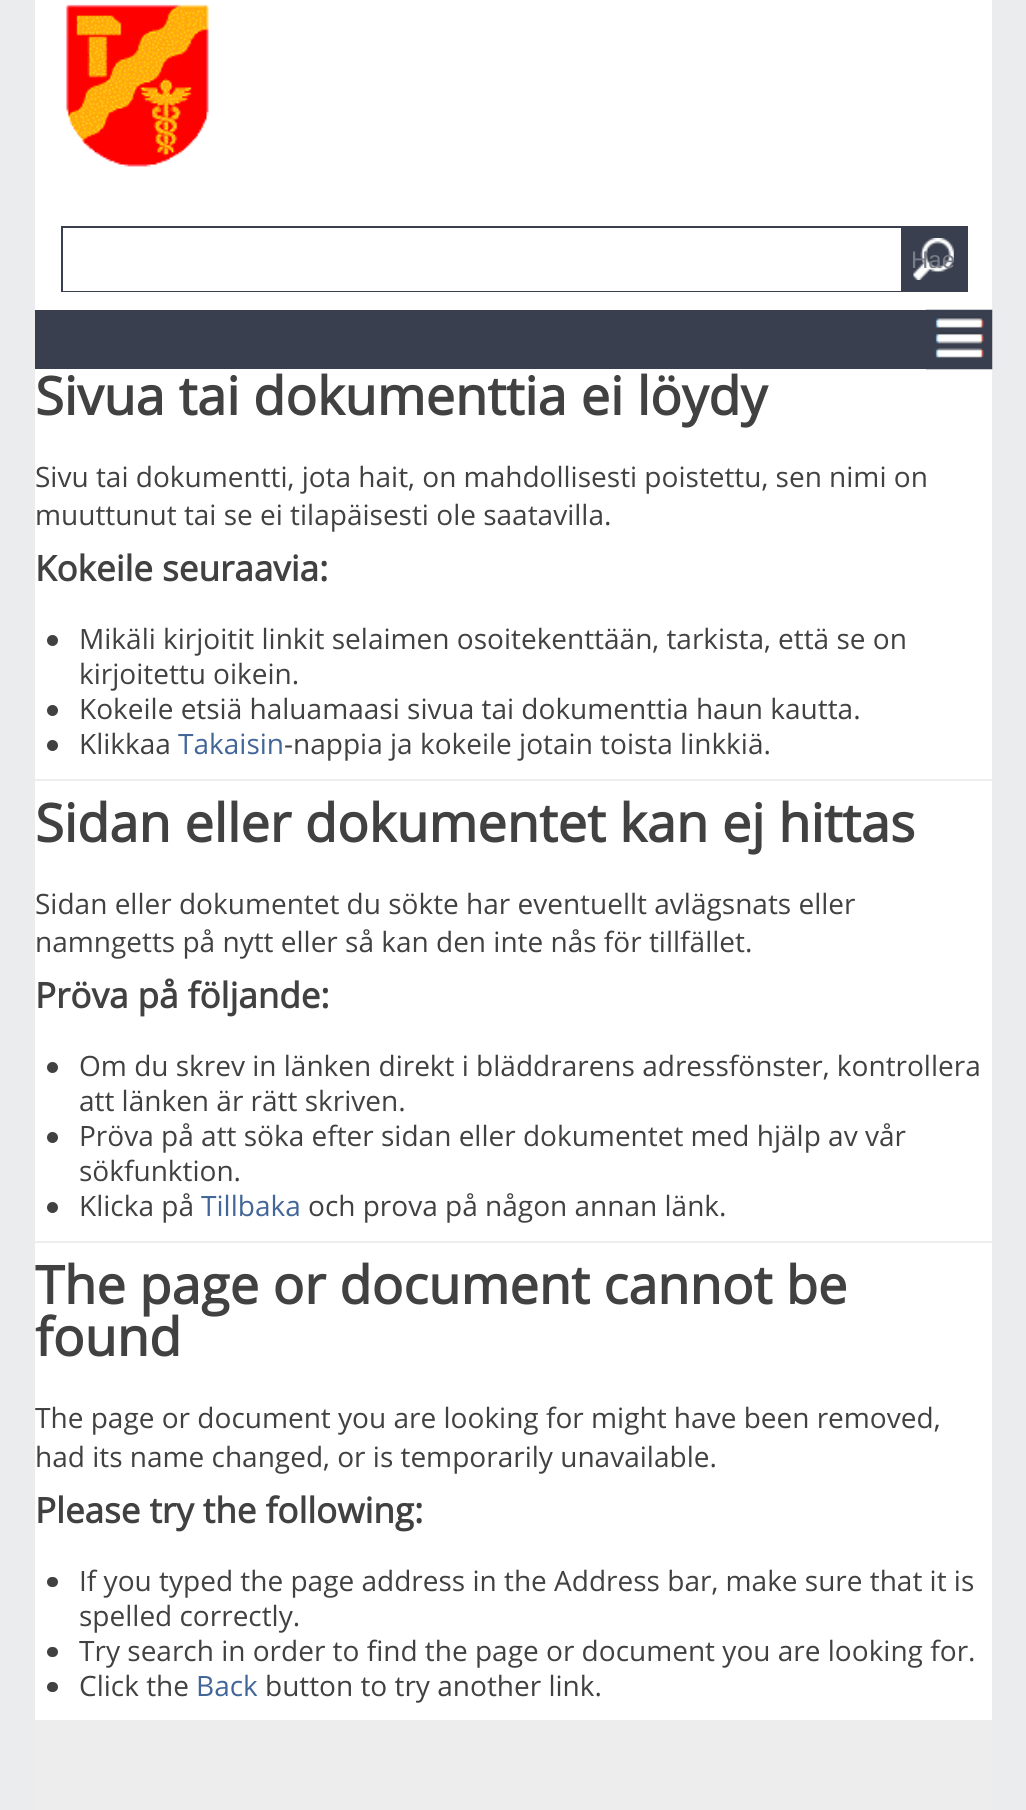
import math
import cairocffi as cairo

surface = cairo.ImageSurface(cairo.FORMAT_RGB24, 1026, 1810)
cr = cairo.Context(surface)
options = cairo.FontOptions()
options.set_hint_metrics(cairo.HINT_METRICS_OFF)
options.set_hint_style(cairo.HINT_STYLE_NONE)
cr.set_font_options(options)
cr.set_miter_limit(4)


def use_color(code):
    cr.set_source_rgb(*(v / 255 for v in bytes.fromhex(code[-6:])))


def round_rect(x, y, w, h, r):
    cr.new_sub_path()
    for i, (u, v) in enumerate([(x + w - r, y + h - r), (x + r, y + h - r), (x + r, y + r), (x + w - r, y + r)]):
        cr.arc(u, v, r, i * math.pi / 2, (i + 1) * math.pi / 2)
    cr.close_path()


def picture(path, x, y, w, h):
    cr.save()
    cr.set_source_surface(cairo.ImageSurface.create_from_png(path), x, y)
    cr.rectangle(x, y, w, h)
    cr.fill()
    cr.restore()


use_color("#eaecee")
cr.paint()
use_color("#ffffff")
cr.rectangle(35, 0, 957, 310)
cr.fill()
use_color("#393f4e")
cr.rectangle(35, 310, 891, 59)
cr.fill()
use_color("#ffffff")
cr.rectangle(35, 369, 957, 1351)
cr.fill()
picture("img1.png", 925, 309, 68, 61)
picture("img2.png", 66, 4, 143, 163)
use_color("#393f4e")
cr.rectangle(61, 226, 840, 2)
cr.fill()
cr.rectangle(61, 291, 840, 1)
cr.fill()
cr.rectangle(61, 226, 2, 66)
cr.fill()
cr.rectangle(901, 226, 67, 66)
cr.fill()
picture("img3.png", 913, 238, 41, 42)
cr.select_font_face("Liberation Sans")
cr.set_font_size(24)
use_color("#797d87")
cr.move_to(911, 268)
cr.show_text("Hae")
cr.select_font_face("Open Sans", cairo.FONT_SLANT_NORMAL, cairo.FONT_WEIGHT_BOLD)
cr.set_font_size(52.5)
use_color("#414141")
cr.move_to(35, 415)
cr.show_text("Sivua tai dokumenttia ei löydy")
cr.select_font_face("Open Sans")
cr.set_font_size(28)
cr.move_to(35, 487)
cr.show_text("Sivu tai dokumentti, jota hait, on mahdollisesti poistettu, sen nimi on")
cr.move_to(35, 525)
cr.show_text("muuttunut tai se ei tilapäisesti ole saatavilla.")
cr.select_font_face("Open Sans", cairo.FONT_SLANT_NORMAL, cairo.FONT_WEIGHT_BOLD)
cr.set_font_size(35)
cr.move_to(35, 581)
cr.show_text("Kokeile seuraavia:")
cr.new_path()
cr.arc(52.5, 640.5, 5.5, 0, 2 * math.pi)
cr.fill()
cr.select_font_face("Open Sans")
cr.set_font_size(28)
cr.move_to(79, 649)
cr.show_text("Mikäli kirjoitit linkit selaimen osoitekenttään, tarkista, että se on")
cr.move_to(79, 684)
cr.show_text("kirjoitettu oikein.")
cr.new_path()
cr.arc(52.5, 710.5, 5.5, 0, 2 * math.pi)
cr.fill()
cr.move_to(79, 719)
cr.show_text("Kokeile etsiä haluamaasi sivua tai dokumenttia haun kautta.")
cr.new_path()
cr.arc(52.5, 745.5, 5.5, 0, 2 * math.pi)
cr.fill()
cr.move_to(79, 754)
cr.show_text("Klikkaa")
use_color("#436699")
cr.move_to(178, 754)
cr.show_text("Takaisin")
use_color("#414141")
cr.move_to(284, 754)
cr.show_text("-nappia ja kokeile jotain toista linkkiä.")
use_color("#eeeeee")
cr.rectangle(35, 779, 957, 2)
cr.fill()
cr.select_font_face("Open Sans", cairo.FONT_SLANT_NORMAL, cairo.FONT_WEIGHT_BOLD)
cr.set_font_size(52.5)
use_color("#414141")
cr.move_to(35, 842)
cr.show_text("Sidan eller dokumentet kan ej hittas")
cr.select_font_face("Open Sans")
cr.set_font_size(28)
cr.move_to(35, 914)
cr.show_text("Sidan eller dokumentet du sökte har eventuellt avlägsnats eller")
cr.move_to(35, 952)
cr.show_text("namngetts på nytt eller så kan den inte nås för tillfället.")
cr.select_font_face("Open Sans", cairo.FONT_SLANT_NORMAL, cairo.FONT_WEIGHT_BOLD)
cr.set_font_size(35)
cr.move_to(35, 1008)
cr.show_text("Pröva på följande:")
cr.new_path()
cr.arc(52.5, 1067.5, 5.5, 0, 2 * math.pi)
cr.fill()
cr.select_font_face("Open Sans")
cr.set_font_size(28)
cr.move_to(79, 1076)
cr.show_text("Om du skrev in länken direkt i bläddrarens adressfönster, kontrollera")
cr.move_to(79, 1111)
cr.show_text("att länken är rätt skriven.")
cr.new_path()
cr.arc(52.5, 1137.5, 5.5, 0, 2 * math.pi)
cr.fill()
cr.move_to(79, 1146)
cr.show_text("Pröva på att söka efter sidan eller dokumentet med hjälp av vår")
cr.move_to(79, 1181)
cr.show_text("sökfunktion.")
cr.new_path()
cr.arc(52.5, 1207.5, 5.5, 0, 2 * math.pi)
cr.fill()
cr.move_to(79, 1216)
cr.show_text("Klicka på")
use_color("#436699")
cr.move_to(201, 1216)
cr.show_text("Tillbaka")
use_color("#414141")
cr.move_to(308, 1216)
cr.show_text("och prova på någon annan länk.")
use_color("#eeeeee")
cr.rectangle(35, 1241, 957, 2)
cr.fill()
cr.select_font_face("Open Sans", cairo.FONT_SLANT_NORMAL, cairo.FONT_WEIGHT_BOLD)
cr.set_font_size(52.5)
use_color("#414141")
cr.move_to(35, 1304)
cr.show_text("The page or document cannot be")
cr.move_to(35, 1356)
cr.show_text("found")
cr.select_font_face("Open Sans")
cr.set_font_size(28)
cr.move_to(35, 1428)
cr.show_text("The page or document you are looking for might have been removed,")
cr.move_to(35, 1467)
cr.show_text("had its name changed, or is temporarily unavailable.")
cr.select_font_face("Open Sans", cairo.FONT_SLANT_NORMAL, cairo.FONT_WEIGHT_BOLD)
cr.set_font_size(35)
cr.move_to(35, 1523)
cr.show_text("Please try the following:")
round_rect(47, 1577, 11, 10, 5)
cr.fill()
cr.select_font_face("Open Sans")
cr.set_font_size(28)
cr.move_to(79, 1591)
cr.show_text("If you typed the page address in the Address bar, make sure that it is")
cr.move_to(79, 1626)
cr.show_text("spelled correctly.")
round_rect(47, 1647, 11, 10, 5)
cr.fill()
cr.move_to(79, 1661)
cr.show_text("Try search in order to find the page or document you are looking for.")
round_rect(47, 1682, 11, 10, 5)
cr.fill()
cr.move_to(79, 1696)
cr.show_text("Click the")
use_color("#436699")
cr.move_to(196, 1696)
cr.show_text("Back")
use_color("#414141")
cr.move_to(265, 1696)
cr.show_text("button to try another link.")
use_color("#ededed")
cr.rectangle(35, 1720, 957, 90)
cr.fill()
surface.write_to_png("result.png")
